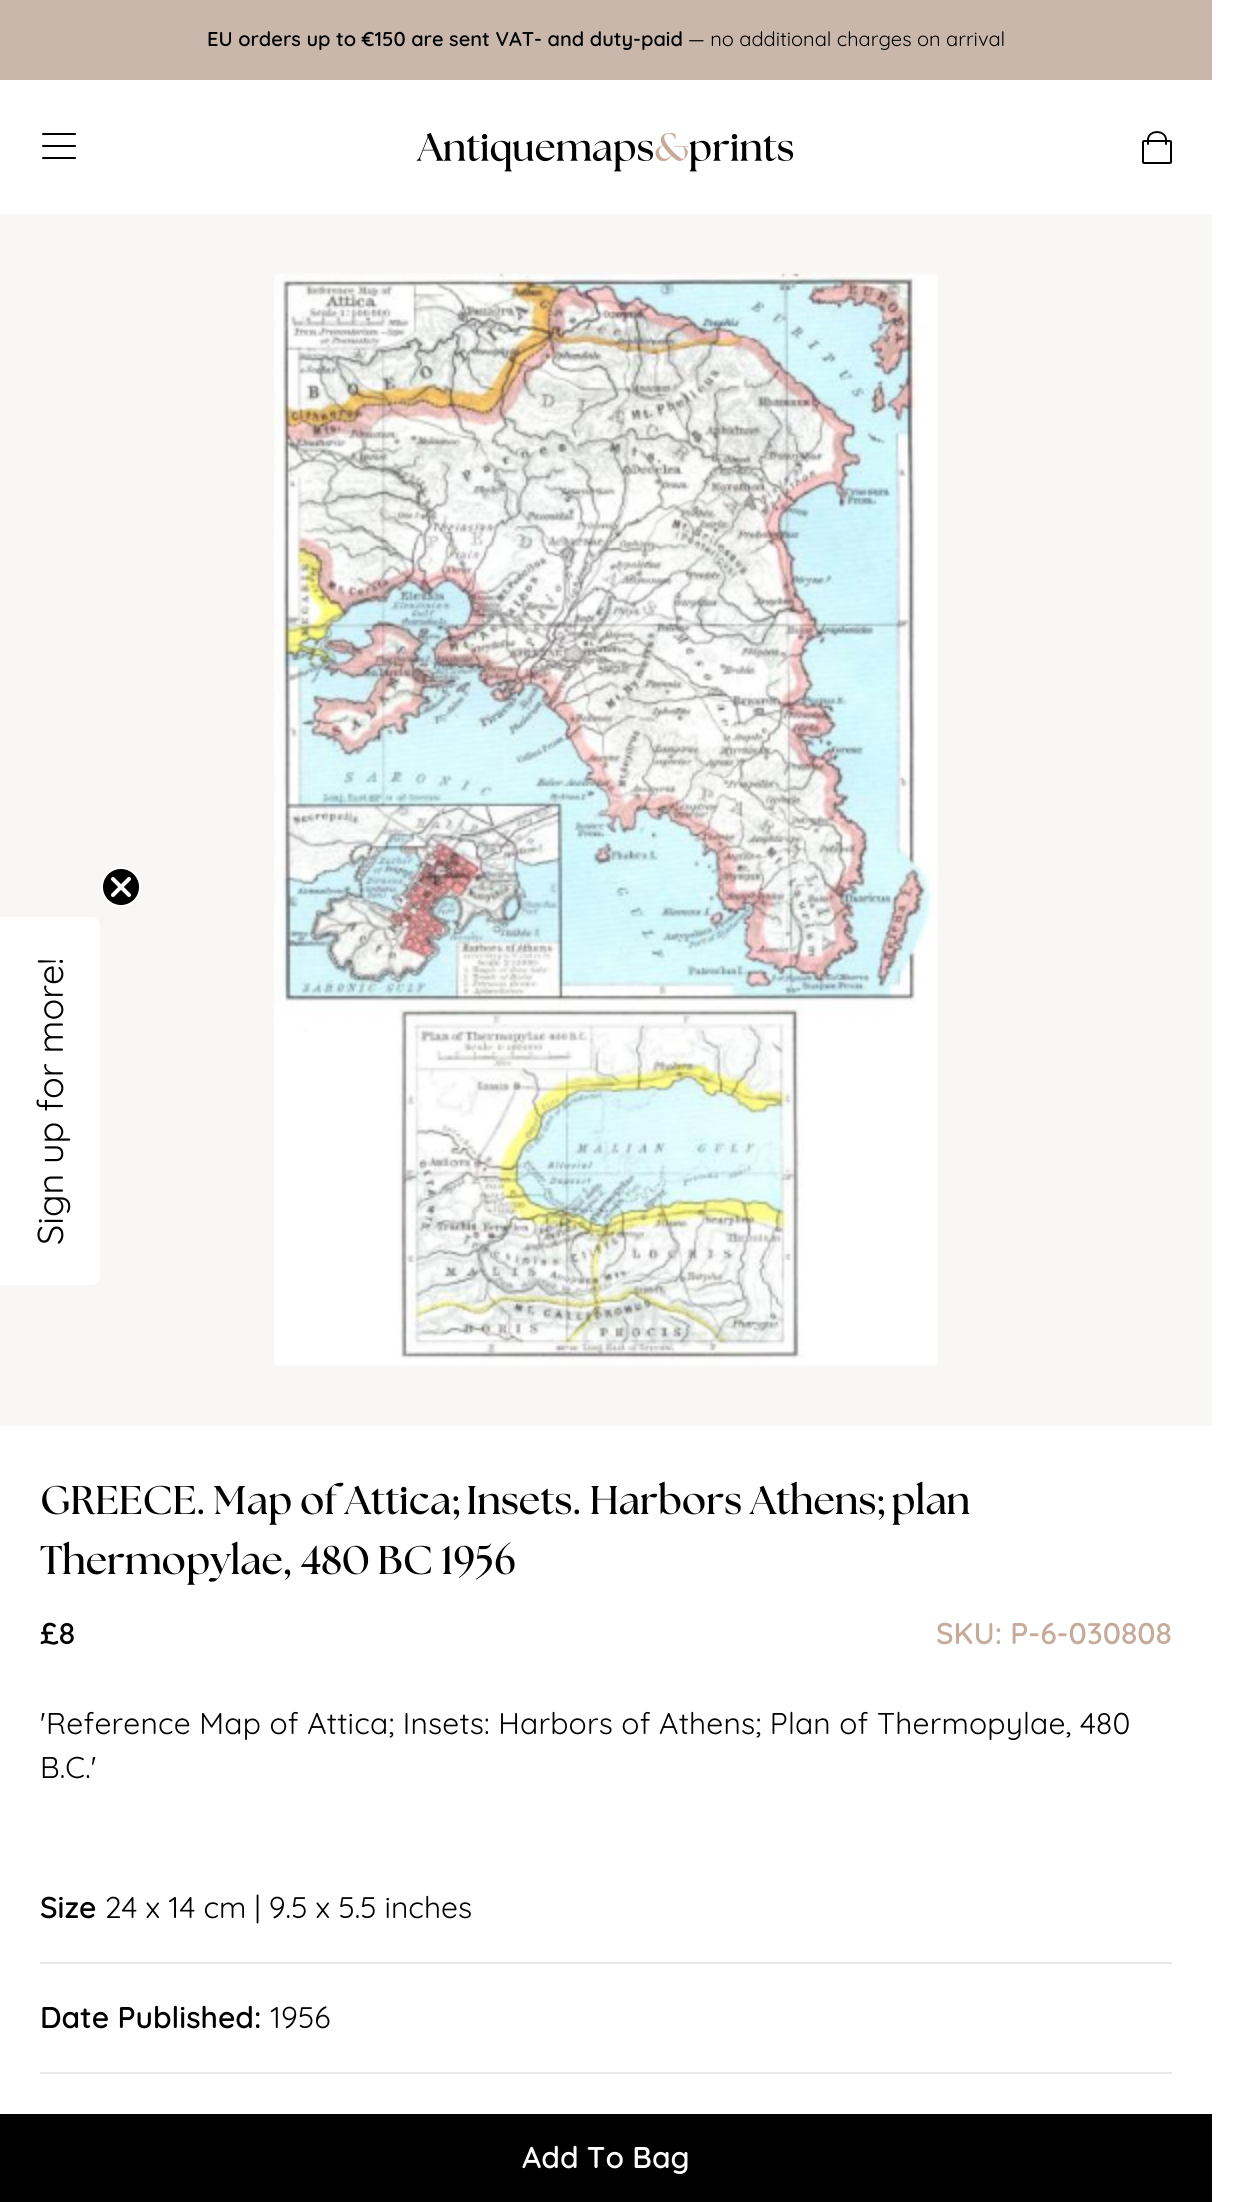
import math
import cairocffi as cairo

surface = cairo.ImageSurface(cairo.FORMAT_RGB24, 1241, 2202)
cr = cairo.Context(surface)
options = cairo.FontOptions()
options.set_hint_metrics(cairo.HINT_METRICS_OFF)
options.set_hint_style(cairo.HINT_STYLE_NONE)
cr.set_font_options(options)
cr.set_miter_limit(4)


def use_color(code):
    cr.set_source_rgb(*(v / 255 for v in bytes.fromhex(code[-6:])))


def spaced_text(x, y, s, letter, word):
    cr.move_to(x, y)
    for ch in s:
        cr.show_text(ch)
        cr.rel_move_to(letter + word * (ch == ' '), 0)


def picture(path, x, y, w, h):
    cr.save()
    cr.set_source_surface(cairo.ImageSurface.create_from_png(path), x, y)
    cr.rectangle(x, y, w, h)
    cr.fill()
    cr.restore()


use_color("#ffffff")
cr.paint()
use_color("#c8b7aa")
cr.rectangle(0, 0, 1212, 80)
cr.fill()
cr.select_font_face("Quicksand SemiBold")
cr.set_font_size(20)
use_color("#000000")
cr.move_to(207, 46)
cr.show_text("EU orders up to €150 are sent VAT- and duty-paid")
cr.select_font_face("Quicksand")
cr.move_to(688, 46)
cr.show_text("— no additional charges on arrival")
cr.new_path()
cr.move_to(43, 134)
cr.line_to(75, 134)
cr.move_to(43, 146)
cr.line_to(75, 146)
cr.move_to(43, 158)
cr.line_to(75, 158)
cr.set_line_cap(cairo.LINE_CAP_ROUND)
cr.stroke()
picture("img1.png", 416, 132, 378, 40)
picture("img2.png", 1142, 131, 30, 33)
use_color("#f9f7f5")
cr.rectangle(0, 214, 1212, 1212)
cr.fill()
picture("img3.png", 101, 867, 40, 40)
use_color("#ffffff")
cr.new_path()
cr.move_to(0, 1285)
cr.line_to(0, 917)
cr.line_to(92, 917)
cr.curve_to(96, 917, 100, 921, 100, 925)
cr.line_to(100, 1277)
cr.curve_to(100, 1281, 96, 1285, 92, 1285)
cr.close_path()
cr.fill()
cr.set_font_size(36)
use_color("#000000")
cr.save()
cr.translate(63, 1245)
cr.rotate(-90 * math.pi / 180)
cr.move_to(0, 0)
cr.show_text("Sign up for more!")
cr.restore()
picture("img4.png", 274, 273, 664, 1093)
cr.select_font_face("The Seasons", cairo.FONT_SLANT_NORMAL, cairo.FONT_WEIGHT_BOLD)
cr.set_font_size(40)
cr.move_to(40, 1514)
cr.show_text("GREECE. Map of Attica; Insets. Harbors Athens; plan")
cr.move_to(40, 1574)
cr.show_text("Thermopylae, 480 BC 1956")
cr.select_font_face("Quicksand SemiBold")
cr.set_font_size(30)
cr.move_to(40, 1644)
cr.show_text("£8")
use_color("#c6ab9b")
cr.move_to(936, 1644)
cr.show_text("SKU: P-6-030808")
cr.select_font_face("Quicksand")
use_color("#000000")
spaced_text(40, 1734, "'Reference Map of Attica; Insets: Harbors of Athens; Plan of Thermopylae, 480", 0.2, 0)
spaced_text(40, 1778, "B.C.'", 0.2, 0)
use_color("#e8e8e8")
cr.rectangle(40, 1962, 1132, 2)
cr.fill()
cr.select_font_face("Quicksand SemiBold")
use_color("#000000")
cr.move_to(40, 1918)
cr.show_text("Size")
cr.select_font_face("Quicksand")
cr.move_to(105, 1918)
cr.show_text("24 x 14 cm | 9.5 x 5.5 inches")
use_color("#e8e8e8")
cr.rectangle(40, 2072, 1132, 2)
cr.fill()
cr.select_font_face("Quicksand SemiBold")
use_color("#000000")
cr.move_to(40, 2028)
cr.show_text("Date Published:")
cr.select_font_face("Quicksand")
cr.move_to(270, 2028)
cr.show_text("1956")
cr.rectangle(0, 2114, 1212, 88)
cr.fill()
cr.select_font_face("Quicksand SemiBold")
use_color("#ffffff")
cr.move_to(522, 2168)
cr.show_text("Add To Bag")
surface.write_to_png("result.png")
